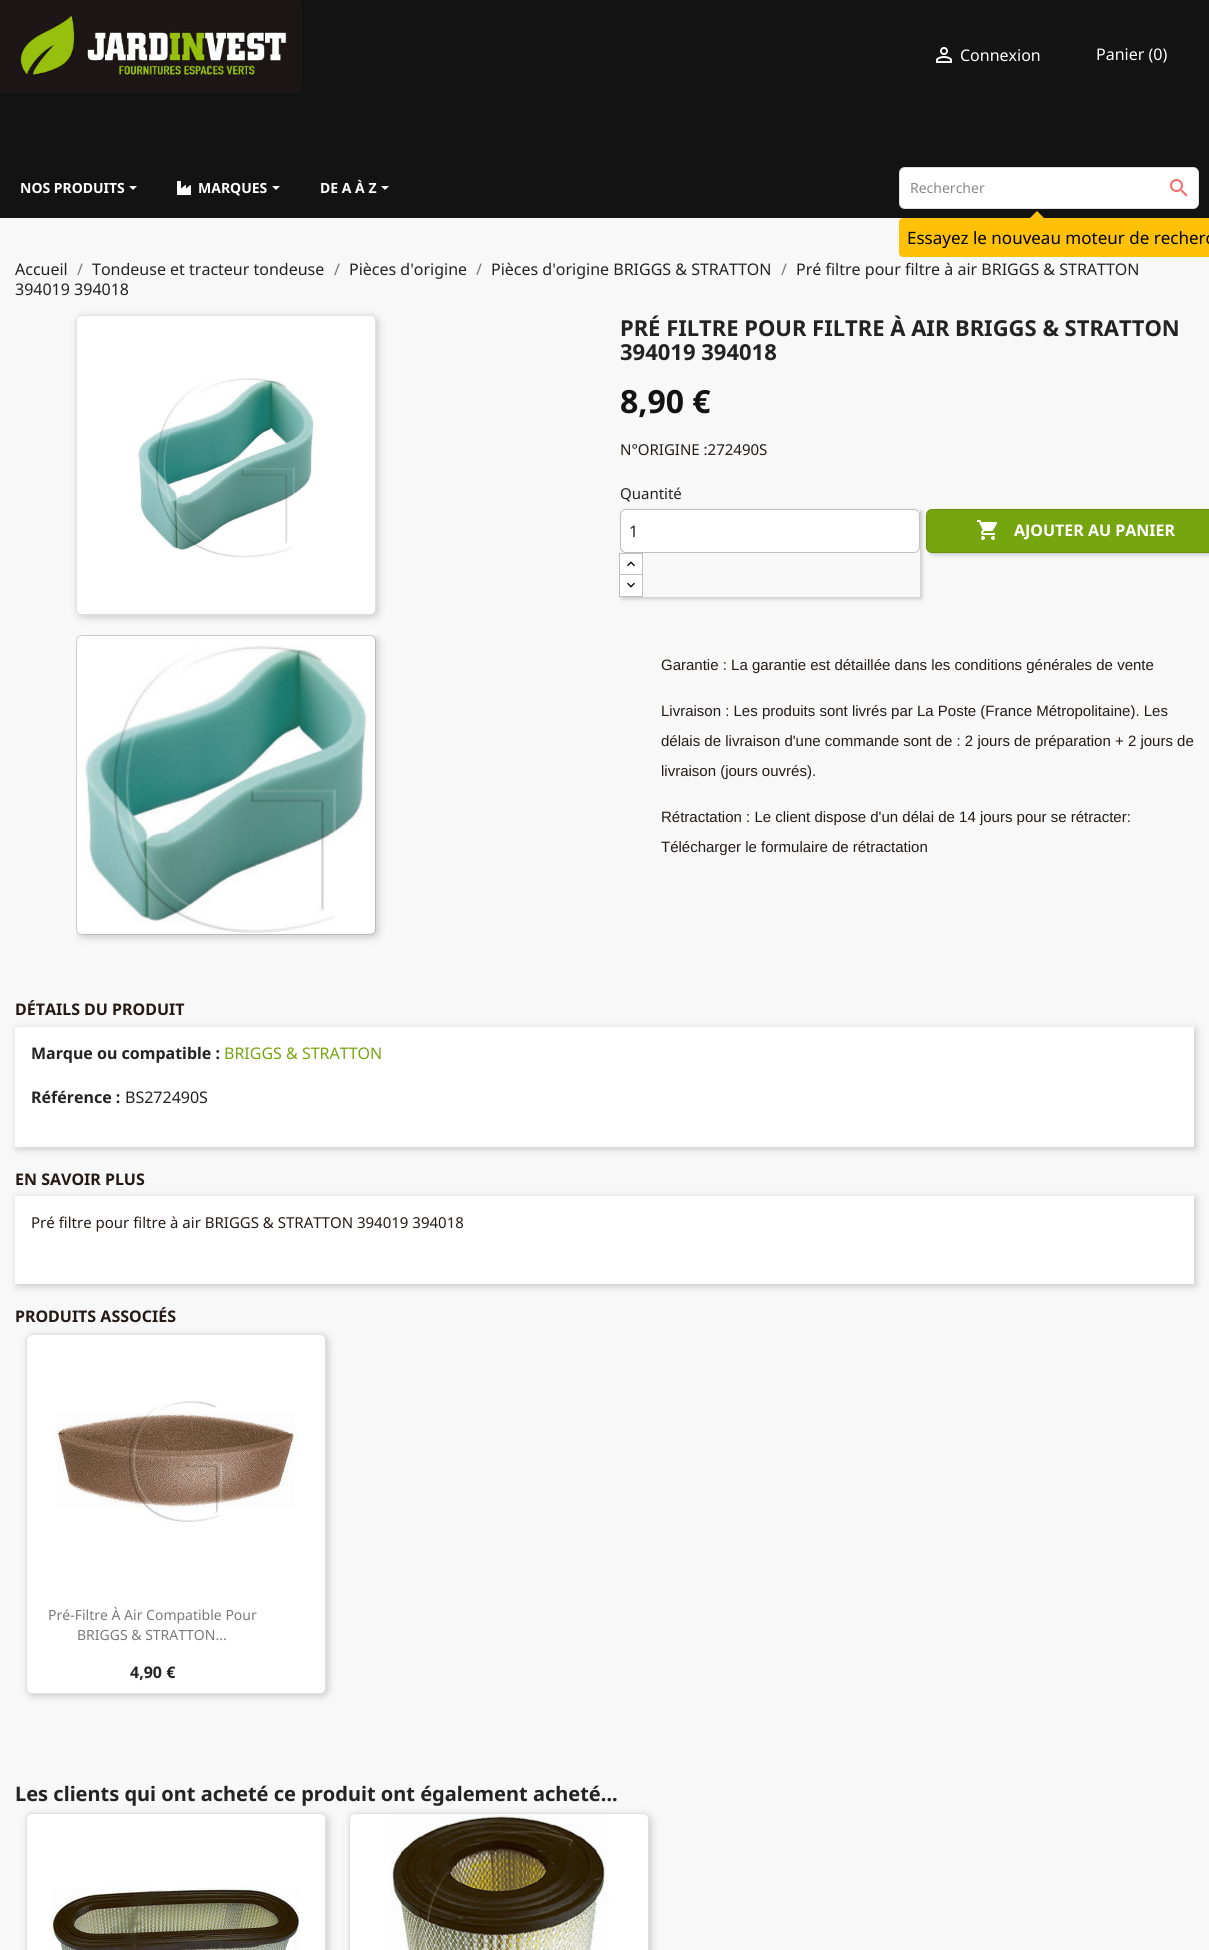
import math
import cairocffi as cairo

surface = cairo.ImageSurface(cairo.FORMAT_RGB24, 1209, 1950)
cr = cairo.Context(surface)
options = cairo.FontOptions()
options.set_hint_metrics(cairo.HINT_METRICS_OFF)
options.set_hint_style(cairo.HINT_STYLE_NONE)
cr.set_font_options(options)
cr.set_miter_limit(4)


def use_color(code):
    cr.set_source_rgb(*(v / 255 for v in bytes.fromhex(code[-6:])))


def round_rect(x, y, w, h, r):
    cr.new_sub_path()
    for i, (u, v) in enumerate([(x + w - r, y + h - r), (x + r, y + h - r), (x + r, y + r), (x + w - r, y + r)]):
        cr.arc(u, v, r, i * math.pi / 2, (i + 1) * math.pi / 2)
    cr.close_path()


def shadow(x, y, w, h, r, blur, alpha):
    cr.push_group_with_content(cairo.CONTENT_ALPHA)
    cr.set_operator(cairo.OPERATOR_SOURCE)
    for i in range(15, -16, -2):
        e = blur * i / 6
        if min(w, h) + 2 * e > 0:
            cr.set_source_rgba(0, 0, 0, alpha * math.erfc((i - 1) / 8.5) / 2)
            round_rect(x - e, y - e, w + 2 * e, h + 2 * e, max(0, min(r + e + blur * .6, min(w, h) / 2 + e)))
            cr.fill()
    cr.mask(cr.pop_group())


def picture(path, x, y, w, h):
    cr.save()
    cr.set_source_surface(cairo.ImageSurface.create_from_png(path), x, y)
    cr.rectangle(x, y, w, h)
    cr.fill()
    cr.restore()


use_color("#131313")
cr.paint()
picture("img1.png", 0, 0, 302, 93)
picture("img2.png", 936, 47, 16, 16)
cr.select_font_face("Noto Sans")
cr.set_font_size(16)
use_color("#ffffff")
cr.move_to(960, 61)
cr.show_text("Connexion")
cr.move_to(1096, 60)
cr.show_text("Panier (0)")
cr.select_font_face("Noto Sans", cairo.FONT_SLANT_NORMAL, cairo.FONT_WEIGHT_BOLD)
cr.set_font_size(14)
cr.move_to(20, 193)
cr.show_text("NOS PRODUITS")
cr.new_path()
cr.move_to(129, 186)
cr.line_to(137, 186)
cr.line_to(133, 190)
cr.close_path()
cr.fill()
picture("img3.png", 177, 181, 14, 14)
cr.move_to(198, 193)
cr.show_text("MARQUES")
cr.new_path()
cr.move_to(272, 186)
cr.line_to(280, 186)
cr.line_to(276, 190)
cr.close_path()
cr.fill()
cr.move_to(320, 193)
cr.show_text("DE A À Z")
cr.new_path()
cr.move_to(381, 186)
cr.line_to(389, 186)
cr.line_to(385, 190)
cr.close_path()
cr.fill()
round_rect(899, 167, 300, 42, 6)
cr.fill()
round_rect(899.5, 167.5, 299, 41, 5.5)
cr.set_source_rgba(0, 0, 0, 0.12)
cr.set_line_width(1)
cr.stroke()
cr.select_font_face("Noto Sans")
use_color("#888888")
cr.move_to(910, 193)
cr.show_text("Rechercher")
picture("img4.png", 1170, 179, 18, 18)
use_color("#f8f8f8")
cr.rectangle(0, 218, 1209, 1732)
cr.fill()
use_color("#ffc107")
round_rect(899, 218, 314, 39, 4)
cr.fill()
cr.new_path()
cr.move_to(1045, 219)
cr.line_to(1029, 219)
cr.line_to(1037, 211)
cr.close_path()
cr.fill()
cr.set_font_size(17)
use_color("#000000")
cr.move_to(907, 244)
cr.show_text("Essayez le nouveau moteur de recherc")
cr.set_font_size(16)
use_color("#232323")
cr.move_to(15, 275)
cr.show_text("Accueil")
use_color("#7a7a7a")
cr.move_to(77, 275)
cr.show_text("/")
use_color("#232323")
cr.move_to(92, 275)
cr.show_text("Tondeuse et tracteur tondeuse")
use_color("#7a7a7a")
cr.move_to(334, 275)
cr.show_text("/")
use_color("#232323")
cr.move_to(349, 275)
cr.show_text("Pièces d'origine")
use_color("#7a7a7a")
cr.move_to(476, 275)
cr.show_text("/")
use_color("#232323")
cr.move_to(491, 275)
cr.show_text("Pièces d'origine BRIGGS & STRATTON")
use_color("#7a7a7a")
cr.move_to(781, 275)
cr.show_text("/")
use_color("#232323")
cr.move_to(796, 275)
cr.show_text("Pré filtre pour filtre à air BRIGGS & STRATTON")
cr.move_to(15, 295)
cr.show_text("394019 394018")
use_color("#000000")
shadow(78, 317, 300, 300, 6, 4, 0.2)
use_color("#ffffff")
round_rect(76, 315, 300, 300, 6)
cr.fill()
round_rect(76.5, 315.5, 299, 299, 5.5)
cr.set_source_rgba(0, 0, 0, 0.12)
cr.stroke()
picture("img5.png", 77, 316, 298, 298)
cr.save()
cr.rectangle(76, 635, 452, 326)
cr.clip()
use_color("#000000")
shadow(78, 637, 300, 300, 6, 4, 0.2)
cr.restore()
round_rect(76.5, 635.5, 299, 299, 5.5)
cr.stroke()
picture("img6.png", 77, 636, 298, 298)
cr.select_font_face("Noto Sans", cairo.FONT_SLANT_NORMAL, cairo.FONT_WEIGHT_BOLD)
cr.set_font_size(22)
use_color("#232323")
cr.move_to(620, 336)
cr.show_text("PRÉ FILTRE POUR FILTRE À AIR BRIGGS & STRATTON")
cr.move_to(620, 360)
cr.show_text("394019 394018")
cr.set_font_size(32)
use_color("#131313")
cr.move_to(620, 413)
cr.show_text("8,90 €")
cr.select_font_face("Noto Sans")
cr.set_font_size(15)
use_color("#261b14")
cr.move_to(620, 455)
cr.show_text("N°ORIGINE :272490S")
use_color("#232323")
cr.move_to(620, 499)
cr.show_text("Quantité")
use_color("#000000")
shadow(928, 511, 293, 44, 6, 2, 0.2)
use_color("#76a60f")
round_rect(926, 509, 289, 44, 6)
cr.fill()
round_rect(926.5, 509.5, 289, 43, 5.5)
cr.set_source_rgba(0, 0, 0, 0.12)
cr.stroke()
cr.save()
cr.set_fill_rule(cairo.FILL_RULE_EVEN_ODD)
cr.new_path()
cr.move_to(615, 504)
cr.line_to(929, 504)
cr.line_to(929, 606)
cr.line_to(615, 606)
cr.close_path()
cr.move_to(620, 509)
cr.line_to(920, 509)
cr.line_to(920, 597)
cr.line_to(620, 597)
cr.close_path()
cr.clip()
use_color("#000000")
shadow(622, 511, 300, 88, 0, 2, 0.2)
cr.restore()
use_color("#ffffff")
round_rect(620.5, 509.5, 299, 43, 5.5)
cr.fill_preserve()
use_color("#bfbfbf")
cr.stroke()
cr.set_font_size(16)
use_color("#232323")
cr.move_to(629, 537)
cr.show_text("1")
use_color("#ffffff")
cr.rectangle(620, 554, 22, 20)
cr.fill()
cr.rectangle(619.5, 553.5, 23, 22)
use_color("#bfbfbf")
cr.stroke()
picture("img7.png", 627, 561, 8, 6)
use_color("#ffffff")
cr.rectangle(619.5, 574.5, 23, 22)
cr.fill_preserve()
use_color("#bfbfbf")
cr.stroke()
picture("img8.png", 627, 582, 8, 6)
picture("img9.png", 977, 520, 20, 20)
cr.select_font_face("Noto Sans", cairo.FONT_SLANT_NORMAL, cairo.FONT_WEIGHT_BOLD)
use_color("#ffffff")
cr.move_to(1014, 536)
cr.show_text("AJOUTER AU PANIER")
cr.select_font_face("Liberation Sans")
cr.set_font_size(15)
use_color("#261b14")
cr.move_to(661, 670)
cr.show_text("Garantie : La garantie est détaillée dans les conditions générales de vente")
cr.move_to(661, 716)
cr.show_text("Livraison : Les produits sont livrés par La Poste (France Métropolitaine). Les")
cr.move_to(661, 746)
cr.show_text("délais de livraison d'une commande sont de : 2 jours de préparation + 2 jours de")
cr.move_to(661, 776)
cr.show_text("livraison (jours ouvrés).")
cr.move_to(661, 822)
cr.show_text("Rétractation : Le client dispose d'un délai de 14 jours pour se rétracter:")
cr.move_to(661, 852)
cr.show_text("Télécharger le formulaire de rétractation")
cr.select_font_face("Noto Sans", cairo.FONT_SLANT_NORMAL, cairo.FONT_WEIGHT_BOLD)
cr.set_font_size(16)
cr.move_to(15, 1015)
cr.show_text("DÉTAILS DU PRODUIT")
use_color("#000000")
shadow(17, 1029, 1179, 120, 0, 4, 0.2)
use_color("#ffffff")
cr.rectangle(15, 1027, 1179, 120)
cr.fill()
use_color("#232323")
cr.move_to(31, 1059)
cr.show_text("Marque ou compatible :")
cr.select_font_face("Noto Sans")
use_color("#76a60f")
cr.move_to(224, 1059)
cr.show_text("BRIGGS & STRATTON")
cr.select_font_face("Noto Sans", cairo.FONT_SLANT_NORMAL, cairo.FONT_WEIGHT_BOLD)
use_color("#232323")
cr.move_to(31, 1103)
cr.show_text("Référence :")
cr.select_font_face("Noto Sans")
cr.move_to(125, 1103)
cr.show_text("BS272490S")
use_color("#000000")
shadow(17, 1198, 1179, 88, 0, 4, 0.2)
cr.select_font_face("Noto Sans", cairo.FONT_SLANT_NORMAL, cairo.FONT_WEIGHT_BOLD)
use_color("#261b14")
cr.move_to(15, 1185)
cr.show_text("EN SAVOIR PLUS")
use_color("#ffffff")
cr.rectangle(15, 1196, 1179, 88)
cr.fill()
cr.select_font_face("Noto Sans")
cr.set_font_size(15)
use_color("#261b14")
cr.move_to(31, 1228)
cr.show_text("Pré filtre pour filtre à air BRIGGS & STRATTON 394019 394018")
cr.select_font_face("Noto Sans", cairo.FONT_SLANT_NORMAL, cairo.FONT_WEIGHT_BOLD)
cr.set_font_size(16)
cr.move_to(15, 1322)
cr.show_text("PRODUITS ASSOCIÉS")
use_color("#000000")
shadow(28, 1336, 300, 360, 6, 4, 0.2)
use_color("#ffffff")
round_rect(26, 1334, 300, 360, 6)
cr.fill()
round_rect(26.5, 1334.5, 299, 359, 5.5)
cr.set_source_rgba(0, 0, 0, 0.12)
cr.stroke()
picture("img10.png", 51, 1400, 248, 123)
cr.select_font_face("Noto Sans")
cr.set_font_size(14)
use_color("#7a7a7a")
cr.move_to(48, 1620)
cr.show_text("Pré-Filtre À Air Compatible Pour")
cr.move_to(77, 1640)
cr.show_text("BRIGGS & STRATTON...")
cr.select_font_face("Noto Sans", cairo.FONT_SLANT_NORMAL, cairo.FONT_WEIGHT_BOLD)
cr.set_font_size(16)
use_color("#232323")
cr.move_to(130, 1678)
cr.show_text("4,90 €")
cr.set_font_size(20)
cr.move_to(15, 1801)
cr.show_text("Les clients qui ont acheté ce produit ont également acheté...")
use_color("#000000")
shadow(28, 1815, 300, 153, 6, 4, 0.2)
use_color("#ffffff")
round_rect(26, 1813, 300, 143, 6)
cr.fill()
round_rect(26.5, 1813.5, 299, 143, 5.5)
cr.set_source_rgba(0, 0, 0, 0.12)
cr.stroke()
picture("img11.png", 51, 1886, 248, 64)
use_color("#000000")
shadow(351, 1815, 300, 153, 6, 4, 0.2)
use_color("#ffffff")
round_rect(349, 1813, 300, 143, 6)
cr.fill()
round_rect(349.5, 1813.5, 299, 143, 5.5)
cr.set_source_rgba(0, 0, 0, 0.12)
cr.stroke()
picture("img12.png", 390, 1814, 219, 136)
surface.write_to_png("result.png")
